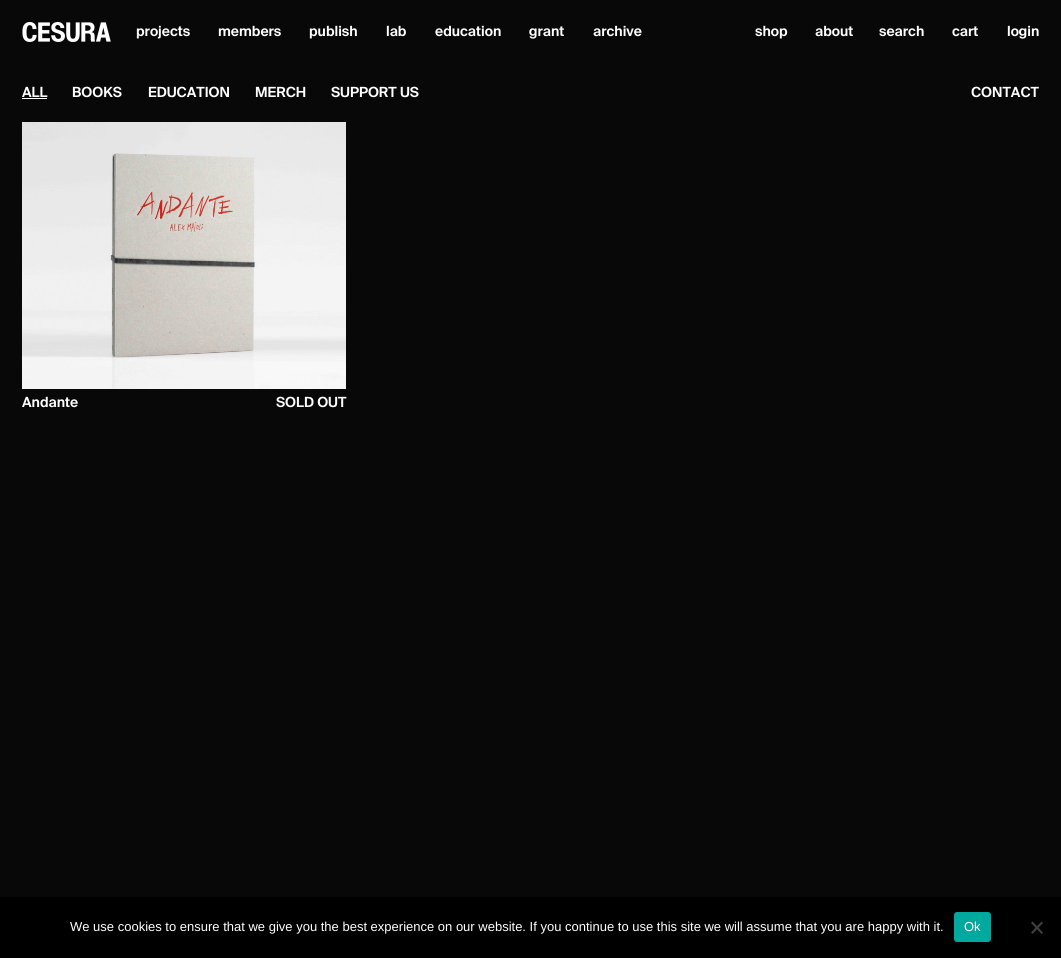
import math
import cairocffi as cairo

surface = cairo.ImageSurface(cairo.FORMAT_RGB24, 1061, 958)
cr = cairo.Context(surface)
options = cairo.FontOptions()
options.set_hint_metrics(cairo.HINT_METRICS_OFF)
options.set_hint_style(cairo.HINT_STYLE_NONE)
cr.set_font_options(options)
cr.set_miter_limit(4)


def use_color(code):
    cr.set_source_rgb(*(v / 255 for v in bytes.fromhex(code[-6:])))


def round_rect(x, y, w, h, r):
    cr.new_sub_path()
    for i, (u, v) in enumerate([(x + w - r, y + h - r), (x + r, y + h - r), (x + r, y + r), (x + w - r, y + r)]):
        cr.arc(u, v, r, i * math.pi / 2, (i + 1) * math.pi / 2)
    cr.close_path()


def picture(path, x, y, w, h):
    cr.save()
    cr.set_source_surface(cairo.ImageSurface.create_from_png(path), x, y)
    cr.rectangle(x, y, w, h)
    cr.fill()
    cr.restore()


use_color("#080808")
cr.paint()
picture("img1.png", 22, 22, 89, 20)
cr.select_font_face("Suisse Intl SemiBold")
cr.set_font_size(14)
use_color("#ffffff")
cr.move_to(136, 36)
cr.show_text("projects")
cr.move_to(218, 36)
cr.show_text("members")
cr.move_to(309, 36)
cr.show_text("publish")
cr.move_to(386, 36)
cr.show_text("lab")
cr.move_to(435, 36)
cr.show_text("education")
cr.move_to(529, 36)
cr.show_text("grant")
cr.move_to(593, 36)
cr.show_text("archive")
cr.move_to(755, 36)
cr.show_text("shop")
cr.move_to(815, 36)
cr.show_text("about")
cr.move_to(879, 36)
cr.show_text("search")
cr.move_to(952, 36)
cr.show_text("cart")
cr.move_to(1007, 36)
cr.show_text("login")
cr.move_to(22, 97)
cr.show_text("ALL")
cr.rectangle(22, 98, 25, 1)
cr.fill()
cr.move_to(72, 97)
cr.show_text("BOOKS")
cr.move_to(148, 97)
cr.show_text("EDUCATION")
cr.move_to(255, 97)
cr.show_text("MERCH")
cr.move_to(331, 97)
cr.show_text("SUPPORT US")
cr.move_to(971, 97)
cr.show_text("CONTACT")
picture("img2.png", 22, 122, 324, 267)
cr.move_to(22, 407)
cr.show_text("Andante")
cr.move_to(276, 407)
cr.show_text("SOLD OUT")
use_color("#000000")
cr.rectangle(0, 897, 1061, 61)
cr.fill()
cr.select_font_face("Liberation Sans")
cr.set_font_size(13)
use_color("#ffffff")
cr.move_to(70, 931)
cr.show_text("We use cookies to ensure that we give you the best experience on our website. If you continue to use this site we will assume that you are happy with it.")
use_color("#00a99d")
round_rect(954, 912, 37, 30, 3)
cr.fill()
use_color("#ffffff")
cr.move_to(964, 931)
cr.show_text("Ok")
use_color("#404040")
cr.new_path()
cr.move_to(1041.5, 921.5)
cr.line_to(1043, 923)
cr.line_to(1032.5, 934)
cr.line_to(1031, 932.5)
cr.close_path()
cr.fill()
cr.new_path()
cr.move_to(1031, 923)
cr.line_to(1032.5, 921.5)
cr.line_to(1043, 932.5)
cr.line_to(1041.5, 934)
cr.close_path()
cr.fill()
surface.write_to_png("result.png")
